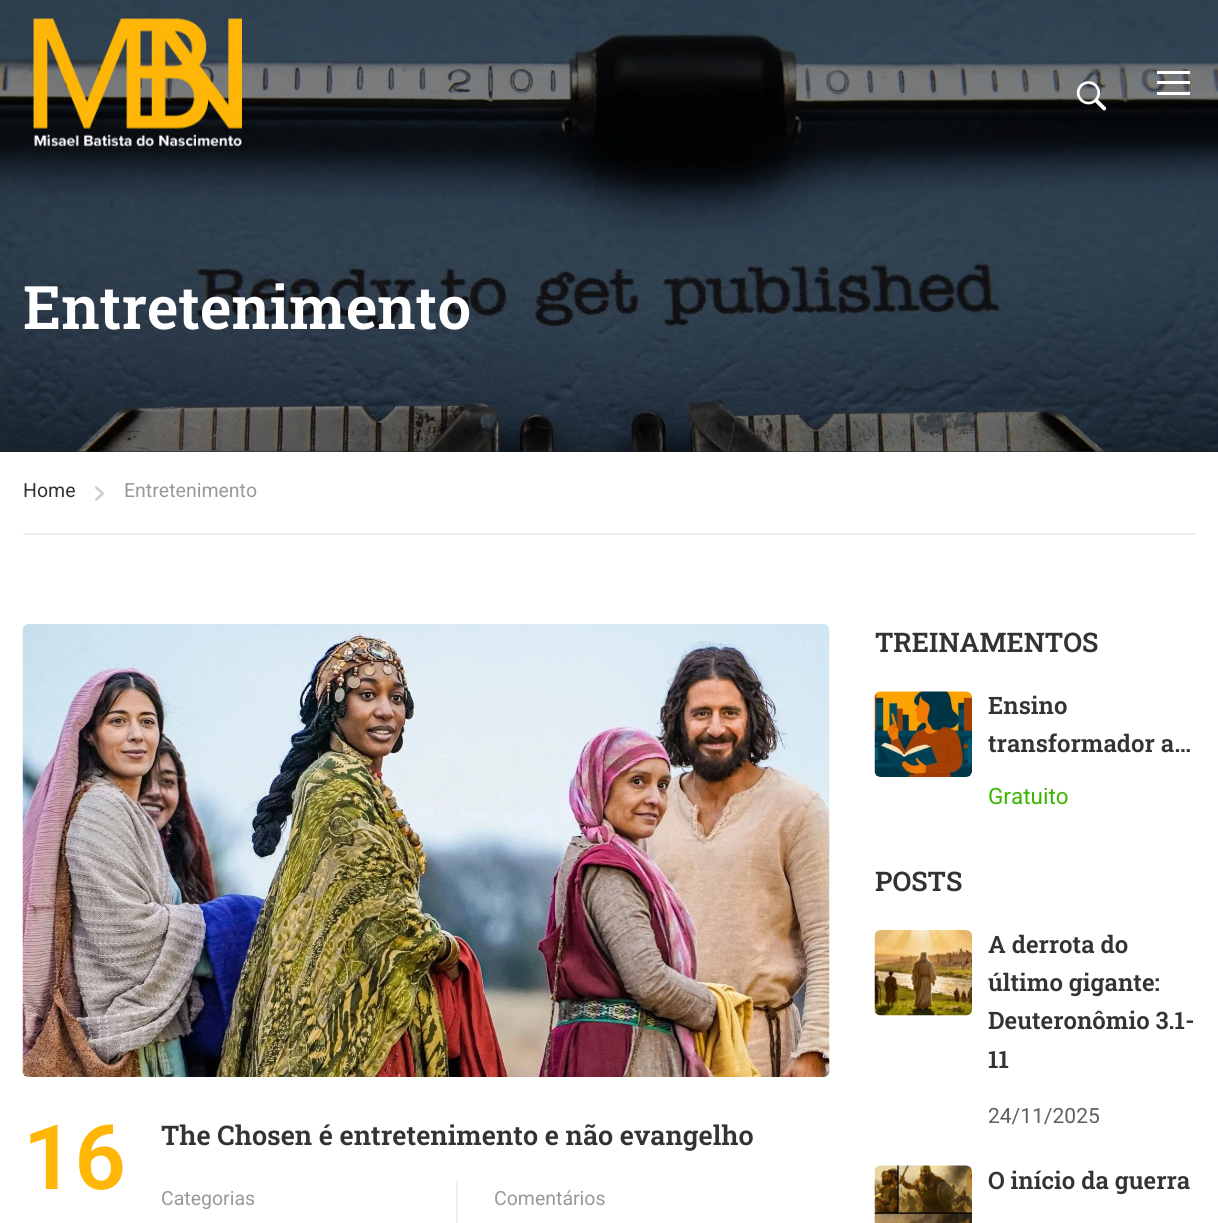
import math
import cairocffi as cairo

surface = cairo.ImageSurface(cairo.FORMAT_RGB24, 1218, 1223)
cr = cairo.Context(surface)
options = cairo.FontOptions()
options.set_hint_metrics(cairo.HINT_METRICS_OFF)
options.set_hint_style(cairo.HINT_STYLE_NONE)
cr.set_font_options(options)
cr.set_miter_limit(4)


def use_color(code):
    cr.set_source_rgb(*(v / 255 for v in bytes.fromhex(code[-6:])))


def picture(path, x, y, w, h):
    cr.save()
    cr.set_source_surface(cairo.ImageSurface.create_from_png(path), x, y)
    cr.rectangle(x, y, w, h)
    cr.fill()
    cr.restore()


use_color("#ffffff")
cr.paint()
use_color("#1c1f22")
cr.rectangle(0, 451, 1218, 1)
cr.fill()
picture("img3.png", 0, 0, 1218, 452)
picture("img1.png", 33, 18, 209, 129)
picture("img2.png", 1076, 81, 31, 30)
use_color("#ffffff")
cr.rectangle(1157, 71, 33, 3)
cr.fill()
cr.rectangle(1157, 81, 33, 3)
cr.fill()
cr.rectangle(1157, 92, 33, 3)
cr.fill()
cr.select_font_face("Roboto Slab SemiBold")
cr.set_font_size(60)
cr.move_to(23, 329)
cr.show_text("Entretenimento")
use_color("#eeeeee")
cr.rectangle(23, 533, 1173, 2)
cr.fill()
cr.select_font_face("Roboto")
cr.set_font_size(19.5)
use_color("#333333")
cr.move_to(23, 497)
cr.show_text("Home")
picture("img4.png", 95, 486, 9, 15)
use_color("#999999")
cr.move_to(124, 497)
cr.show_text("Entretenimento")
picture("img5.png", 22, 624, 808, 453)
cr.select_font_face("Roboto SemiBold")
cr.set_font_size(90)
use_color("#ffb606")
cr.move_to(23, 1189)
cr.show_text("16")
cr.select_font_face("Roboto Slab SemiBold")
cr.set_font_size(27)
use_color("#333333")
cr.move_to(161, 1145)
cr.show_text("The Chosen é entretenimento e não evangelho")
use_color("#eeeeee")
cr.rectangle(456, 1181, 2, 42)
cr.fill()
cr.select_font_face("Roboto")
cr.set_font_size(19.5)
use_color("#999999")
cr.move_to(161, 1205)
cr.show_text("Categorias")
cr.move_to(494, 1205)
cr.show_text("Comentários")
cr.select_font_face("Roboto Slab SemiBold")
cr.set_font_size(27)
use_color("#333333")
cr.move_to(875, 652)
cr.show_text("TREINAMENTOS")
picture("img6.png", 874, 691, 98, 86)
cr.set_font_size(24)
cr.move_to(988, 714)
cr.show_text("Ensino")
cr.move_to(988, 752)
cr.show_text("transformador a…")
cr.select_font_face("Roboto")
cr.set_font_size(22.5)
use_color("#3ab500")
cr.move_to(988, 804)
cr.show_text("Gratuito")
cr.select_font_face("Roboto Slab SemiBold")
cr.set_font_size(27)
use_color("#333333")
cr.move_to(875, 891)
cr.show_text("POSTS")
picture("img7.png", 874, 930, 98, 86)
cr.set_font_size(24)
cr.move_to(988, 953)
cr.show_text("A derrota do")
cr.move_to(988, 991)
cr.show_text("último gigante:")
cr.move_to(988, 1029)
cr.show_text("Deuteronômio 3.1-")
cr.move_to(988, 1068)
cr.show_text("11")
cr.select_font_face("Roboto")
cr.set_font_size(21)
use_color("#606060")
cr.move_to(988, 1123)
cr.show_text("24/11/2025")
picture("img8.png", 874, 1165, 98, 58)
cr.select_font_face("Roboto Slab SemiBold")
cr.set_font_size(24)
use_color("#333333")
cr.move_to(988, 1189)
cr.show_text("O início da guerra")
surface.write_to_png("result.png")
